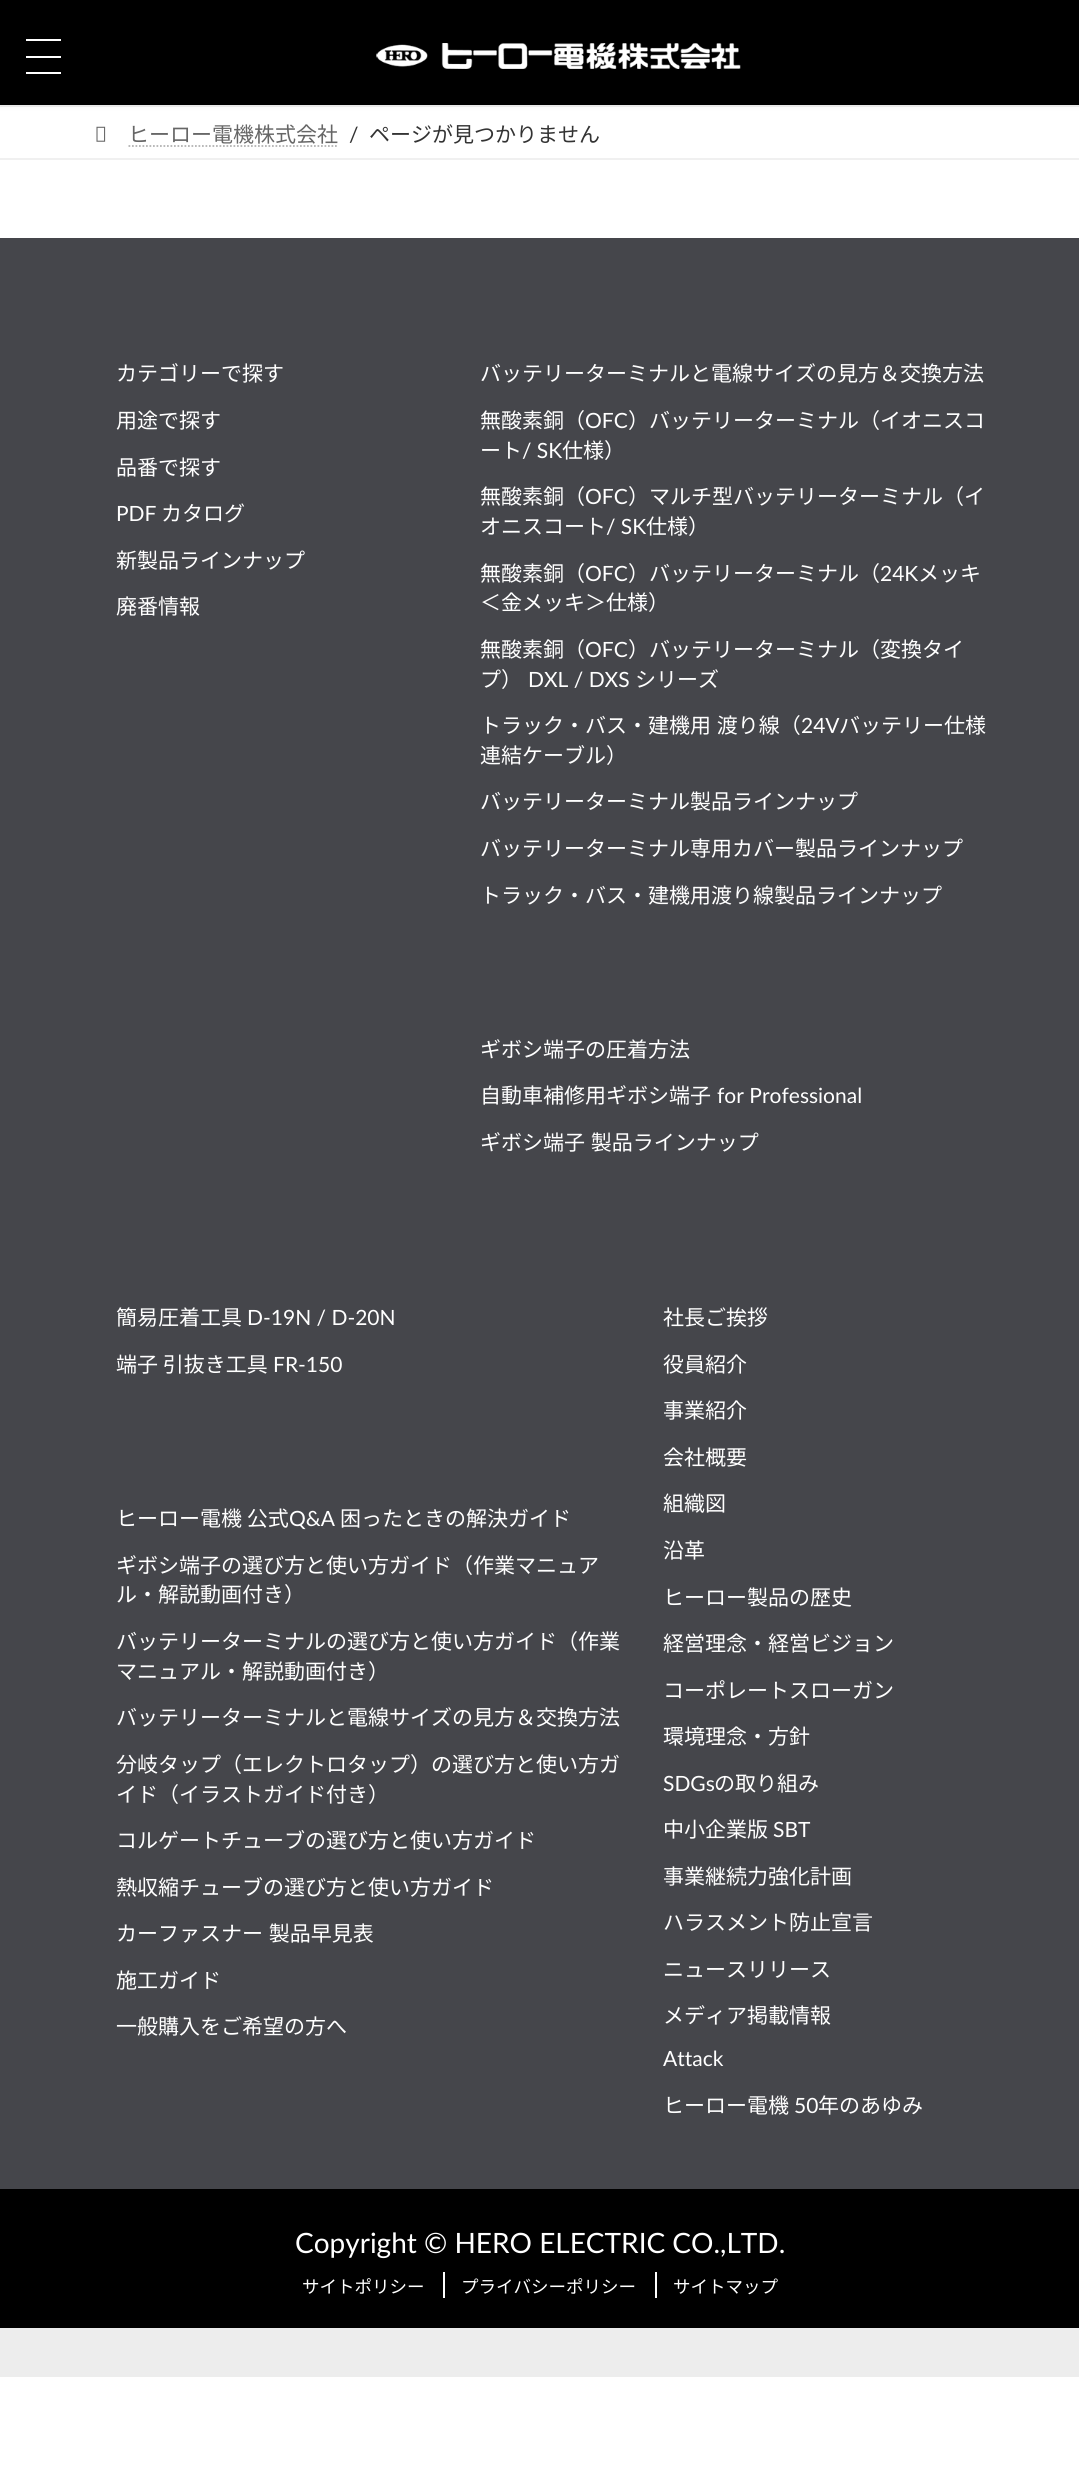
import math
import cairocffi as cairo

surface = cairo.ImageSurface(cairo.FORMAT_RGB24, 1079, 2465)
cr = cairo.Context(surface)
options = cairo.FontOptions()
options.set_hint_metrics(cairo.HINT_METRICS_OFF)
options.set_hint_style(cairo.HINT_STYLE_NONE)
cr.set_font_options(options)
cr.set_miter_limit(4)


def use_color(code):
    cr.set_source_rgb(*(v / 255 for v in bytes.fromhex(code[-6:])))


def spaced_text(x, y, s, letter, word):
    cr.move_to(x, y)
    for ch in s:
        cr.show_text(ch)
        cr.rel_move_to(letter + word * (ch == ' '), 0)


def round_rect(x, y, w, h, r):
    cr.new_sub_path()
    for i, (u, v) in enumerate([(x + w - r, y + h - r), (x + r, y + h - r), (x + r, y + r), (x + w - r, y + r)]):
        cr.arc(u, v, r, i * math.pi / 2, (i + 1) * math.pi / 2)
    cr.close_path()


def shadow(x, y, w, h, r, blur, alpha):
    cr.push_group_with_content(cairo.CONTENT_ALPHA)
    cr.set_operator(cairo.OPERATOR_SOURCE)
    for i in range(15, -16, -2):
        e = blur * i / 6
        if min(w, h) + 2 * e > 0:
            cr.set_source_rgba(0, 0, 0, alpha * math.erfc((i - 1) / 8.5) / 2)
            round_rect(x - e, y - e, w + 2 * e, h + 2 * e, max(0, min(r + e + blur * .6, min(w, h) / 2 + e)))
            cr.fill()
    cr.mask(cr.pop_group())


def picture(path, x, y, w, h):
    cr.save()
    cr.set_source_surface(cairo.ImageSurface.create_from_png(path), x, y)
    cr.rectangle(x, y, w, h)
    cr.fill()
    cr.restore()


use_color("#ffffff")
cr.paint()
use_color("#f0f0f0")
cr.rectangle(0, 105, 1079, 2)
cr.fill()
use_color("#000000")
shadow(0, 2, 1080, 105, 0, 2.5, 0.05)
use_color("#000000")
cr.rectangle(0, 0, 1079, 105)
cr.fill()
picture("img1.png", 376, 43, 365, 26)
use_color("#ffffff")
cr.rectangle(26, 39, 35, 2)
cr.fill()
cr.rectangle(26, 56, 35, 2)
cr.fill()
cr.rectangle(26, 72, 35, 2)
cr.fill()
use_color("#f0f0f0")
cr.rectangle(0, 158, 1079, 2)
cr.fill()
picture("img2.png", 96, 126, 10, 16)
cr.select_font_face("Noto Sans JP")
cr.set_font_size(21)
use_color("#666666")
cr.move_to(128, 142)
cr.show_text("ヒーロー電機株式会社")
cr.new_path()
cr.move_to(128.5, 146)
cr.line_to(338.5, 146)
use_color("#b3b3b3")
cr.set_line_width(1.8)
cr.set_dash([1.75, 1.75])
cr.stroke()
cr.select_font_face("Lato")
use_color("#333333")
cr.move_to(349, 142)
cr.show_text("/")
cr.select_font_face("Noto Sans JP")
cr.move_to(369, 142)
cr.show_text("ページが見つかりません")
use_color("#ededed")
cr.rectangle(0, 2328, 1079, 49)
cr.fill()
use_color("#45464b")
cr.rectangle(0, 238, 1079, 1951)
cr.fill()
use_color("#ffffff")
cr.move_to(116, 381)
cr.show_text("カテゴリーで探す")
cr.move_to(116, 428)
cr.show_text("用途で探す")
cr.move_to(116, 475)
cr.show_text("品番で探す")
cr.select_font_face("Lato")
cr.move_to(116, 521)
cr.show_text("PDF")
cr.select_font_face("Noto Sans JP")
cr.move_to(161, 521)
cr.show_text("カタログ")
cr.move_to(116, 568)
cr.show_text("新製品ラインナップ")
cr.move_to(116, 614)
cr.show_text("廃番情報")
cr.move_to(480, 381)
cr.show_text("バッテリーターミナルと電線サイズの見方＆交換方法")
cr.move_to(480, 428)
cr.show_text("無酸素銅（")
cr.select_font_face("Lato")
cr.move_to(585, 428)
cr.show_text("OFC")
cr.select_font_face("Noto Sans JP")
cr.move_to(628, 428)
cr.show_text("）バッテリーターミナル（イオニスコ")
cr.move_to(480, 458)
cr.show_text("ート")
cr.select_font_face("Lato")
cr.move_to(522, 458)
cr.show_text("/ SK")
cr.select_font_face("Noto Sans JP")
cr.move_to(562, 458)
cr.show_text("仕様）")
cr.move_to(480, 504)
cr.show_text("無酸素銅（")
cr.select_font_face("Lato")
cr.move_to(585, 504)
cr.show_text("OFC")
cr.select_font_face("Noto Sans JP")
cr.move_to(628, 504)
cr.show_text("）マルチ型バッテリーターミナル（イ")
cr.move_to(480, 534)
cr.show_text("オニスコート")
cr.select_font_face("Lato")
cr.move_to(606, 534)
cr.show_text("/ SK")
cr.select_font_face("Noto Sans JP")
cr.move_to(646, 534)
cr.show_text("仕様）")
cr.move_to(480, 581)
cr.show_text("無酸素銅（")
cr.select_font_face("Lato")
cr.move_to(585, 581)
cr.show_text("OFC")
cr.select_font_face("Noto Sans JP")
cr.move_to(628, 581)
cr.show_text("）バッテリーターミナル（")
cr.select_font_face("Lato")
cr.move_to(880, 581)
cr.show_text("24K")
cr.select_font_face("Noto Sans JP")
cr.move_to(918, 581)
cr.show_text("メッキ")
cr.move_to(480, 610)
cr.show_text("＜金メッキ＞仕様）")
cr.move_to(480, 657)
cr.show_text("無酸素銅（")
cr.select_font_face("Lato")
cr.move_to(585, 657)
cr.show_text("OFC")
cr.select_font_face("Noto Sans JP")
cr.move_to(628, 657)
cr.show_text("）バッテリーターミナル（変換タイ")
cr.move_to(480, 687)
cr.show_text("プ）")
cr.select_font_face("Lato")
cr.move_to(528, 687)
cr.show_text("DXL / DXS")
cr.select_font_face("Noto Sans JP")
cr.move_to(635, 687)
cr.show_text("シリーズ")
spaced_text(480, 733, "トラック・バス・建機用 渡り線（", 0, 1)
cr.select_font_face("Lato")
cr.move_to(801, 733)
cr.show_text("24V")
cr.select_font_face("Noto Sans JP")
cr.move_to(839, 733)
cr.show_text("バッテリー仕様")
cr.move_to(480, 763)
cr.show_text("連結ケーブル）")
cr.move_to(480, 809)
cr.show_text("バッテリーターミナル製品ラインナップ")
cr.move_to(480, 856)
cr.show_text("バッテリーターミナル専用カバー製品ラインナップ")
cr.move_to(480, 903)
cr.show_text("トラック・バス・建機用渡り線製品ラインナップ")
cr.move_to(480, 1057)
cr.show_text("ギボシ端子の圧着方法")
cr.move_to(480, 1103)
cr.show_text("自動車補修用ギボシ端子")
cr.select_font_face("Lato")
cr.move_to(717, 1103)
cr.show_text("for Professional")
cr.select_font_face("Noto Sans JP")
spaced_text(480, 1150, "ギボシ端子 製品ラインナップ", 0, 1)
cr.move_to(116, 1325)
cr.show_text("簡易圧着工具")
cr.select_font_face("Lato")
cr.move_to(247, 1325)
cr.show_text("D-19N / D-20N")
cr.select_font_face("Noto Sans JP")
cr.move_to(116, 1372)
cr.show_text("端子 引抜き工具")
cr.select_font_face("Lato")
cr.move_to(273, 1372)
cr.show_text("FR-150")
cr.select_font_face("Noto Sans JP")
cr.move_to(116, 1526)
cr.show_text("ヒーロー電機 公式")
cr.select_font_face("Lato")
cr.move_to(289, 1526)
cr.show_text("Q&A")
cr.select_font_face("Noto Sans JP")
cr.move_to(340, 1526)
cr.show_text("困ったときの解決ガイド")
cr.move_to(116, 1573)
cr.show_text("ギボシ端子の選び方と使い方ガイド（作業マニュア")
cr.move_to(116, 1602)
cr.show_text("ル・解説動画付き）")
cr.move_to(116, 1649)
cr.show_text("バッテリーターミナルの選び方と使い方ガイド（作業")
cr.move_to(116, 1679)
cr.show_text("マニュアル・解説動画付き）")
cr.move_to(116, 1725)
cr.show_text("バッテリーターミナルと電線サイズの見方＆交換方法")
cr.move_to(116, 1772)
cr.show_text("分岐タップ（エレクトロタップ）の選び方と使い方ガ")
cr.move_to(116, 1802)
cr.show_text("イド（イラストガイド付き）")
cr.move_to(116, 1848)
cr.show_text("コルゲートチューブの選び方と使い方ガイド")
cr.move_to(116, 1895)
cr.show_text("熱収縮チューブの選び方と使い方ガイド")
spaced_text(116, 1941, "カーファスナー 製品早見表", 0, 1)
cr.move_to(116, 1988)
cr.show_text("施工ガイド")
cr.move_to(116, 2034)
cr.show_text("一般購入をご希望の方へ")
cr.move_to(663, 1325)
cr.show_text("社長ご挨拶")
cr.move_to(663, 1372)
cr.show_text("役員紹介")
cr.move_to(663, 1418)
cr.show_text("事業紹介")
cr.move_to(663, 1465)
cr.show_text("会社概要")
cr.move_to(663, 1511)
cr.show_text("組織図")
cr.move_to(663, 1558)
cr.show_text("沿革")
cr.move_to(663, 1605)
cr.show_text("ヒーロー製品の歴史")
cr.move_to(663, 1651)
cr.show_text("経営理念・経営ビジョン")
cr.move_to(663, 1698)
cr.show_text("コーポレートスローガン")
cr.move_to(663, 1744)
cr.show_text("環境理念・方針")
cr.select_font_face("Lato")
cr.move_to(663, 1791)
cr.show_text("SDGs")
cr.select_font_face("Noto Sans JP")
cr.move_to(714, 1791)
cr.show_text("の取り組み")
cr.move_to(663, 1837)
cr.show_text("中小企業版")
cr.select_font_face("Lato")
cr.move_to(773, 1837)
cr.show_text("SBT")
cr.select_font_face("Noto Sans JP")
cr.move_to(663, 1884)
cr.show_text("事業継続力強化計画")
cr.move_to(663, 1930)
cr.show_text("ハラスメント防止宣言")
cr.move_to(663, 1977)
cr.show_text("ニュースリリース")
cr.move_to(663, 2023)
cr.show_text("メディア掲載情報")
cr.select_font_face("Lato")
cr.move_to(663, 2066)
cr.show_text("Attack")
cr.select_font_face("Noto Sans JP")
cr.move_to(663, 2113)
cr.show_text("ヒーロー電機")
cr.select_font_face("Lato")
cr.move_to(794, 2113)
cr.show_text("50")
cr.select_font_face("Noto Sans JP")
cr.move_to(818, 2113)
cr.show_text("年のあゆみ")
use_color("#000000")
cr.rectangle(0, 2189, 1079, 139)
cr.fill()
cr.select_font_face("Lato")
cr.set_font_size(28)
use_color("#ffffff")
cr.move_to(295, 2253)
cr.show_text("Copyright © HERO ELECTRIC CO.,LTD.")
cr.select_font_face("Noto Sans JP")
cr.set_font_size(17.5)
cr.move_to(302, 2293)
cr.show_text("サイトポリシー")
cr.rectangle(443, 2272, 2, 26)
cr.fill()
cr.move_to(461, 2293)
cr.show_text("プライバシーポリシー")
cr.rectangle(655, 2272, 2, 26)
cr.fill()
cr.move_to(673, 2293)
cr.show_text("サイトマップ")
surface.write_to_png("result.png")
